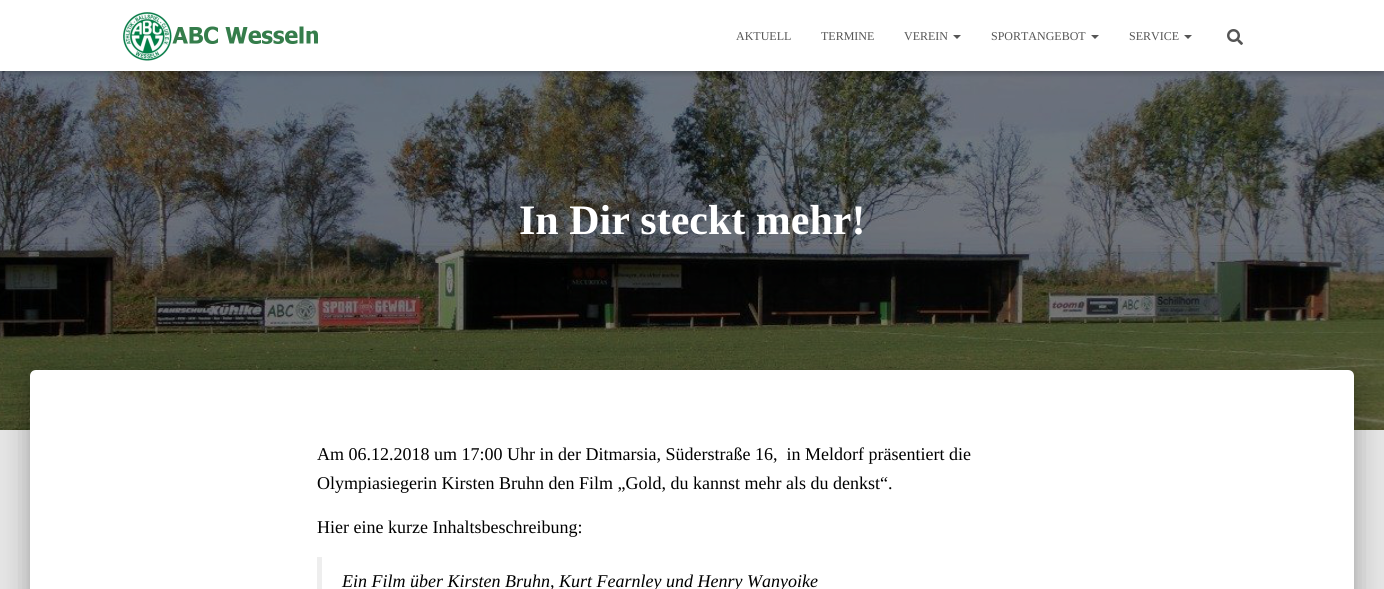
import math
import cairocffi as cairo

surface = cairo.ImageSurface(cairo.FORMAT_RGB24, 1384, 589)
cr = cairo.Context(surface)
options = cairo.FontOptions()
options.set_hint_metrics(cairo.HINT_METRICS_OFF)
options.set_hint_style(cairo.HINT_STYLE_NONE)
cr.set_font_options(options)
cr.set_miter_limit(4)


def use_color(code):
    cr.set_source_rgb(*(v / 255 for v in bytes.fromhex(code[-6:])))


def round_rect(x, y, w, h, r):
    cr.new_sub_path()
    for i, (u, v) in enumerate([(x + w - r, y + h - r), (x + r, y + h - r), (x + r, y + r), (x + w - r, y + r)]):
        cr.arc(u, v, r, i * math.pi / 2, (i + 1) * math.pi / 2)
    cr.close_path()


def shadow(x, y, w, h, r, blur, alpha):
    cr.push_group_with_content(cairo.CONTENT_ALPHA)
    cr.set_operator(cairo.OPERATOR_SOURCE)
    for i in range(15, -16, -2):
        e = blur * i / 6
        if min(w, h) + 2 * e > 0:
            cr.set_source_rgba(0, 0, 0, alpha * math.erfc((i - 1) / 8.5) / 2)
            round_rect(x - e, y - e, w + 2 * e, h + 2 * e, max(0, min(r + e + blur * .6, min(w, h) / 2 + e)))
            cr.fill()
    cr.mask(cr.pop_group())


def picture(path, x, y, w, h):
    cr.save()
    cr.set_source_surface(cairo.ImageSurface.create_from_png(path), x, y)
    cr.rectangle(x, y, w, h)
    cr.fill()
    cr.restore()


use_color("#e5e5e5")
cr.paint()
picture("img3.png", 0, 71, 1384, 359)
use_color("#000000")
shadow(2, 6, 1380, 67, 0, 2.5, 0.1)
shadow(0, 1, 1384, 71, 0, 5, 0.12)
shadow(6, 7, 1372, 59, 0, 5, 0.42)
use_color("#ffffff")
cr.rectangle(0, 0, 1384, 71)
cr.fill()
picture("img1.png", 123, 12, 195, 49)
cr.select_font_face("Liberation Serif")
cr.set_font_size(12)
use_color("#555555")
cr.move_to(736, 40)
cr.show_text("AKTUELL")
cr.move_to(821, 40)
cr.show_text("TERMINE")
cr.move_to(904, 40)
cr.show_text("VEREIN")
cr.new_path()
cr.move_to(953, 35)
cr.line_to(961, 35)
cr.line_to(957, 39)
cr.close_path()
cr.fill()
cr.move_to(991, 40)
cr.show_text("SPORTANGEBOT")
cr.new_path()
cr.move_to(1091, 35)
cr.line_to(1099, 35)
cr.line_to(1095, 39)
cr.close_path()
cr.fill()
cr.move_to(1129, 40)
cr.show_text("SERVICE")
cr.new_path()
cr.move_to(1184, 35)
cr.line_to(1192, 35)
cr.line_to(1188, 39)
cr.close_path()
cr.fill()
picture("img2.png", 1227, 29, 16, 16)
cr.select_font_face("Liberation Serif", cairo.FONT_SLANT_NORMAL, cairo.FONT_WEIGHT_BOLD)
cr.set_font_size(42)
use_color("#ffffff")
cr.move_to(519, 234)
cr.show_text("In Dir steckt mehr!")
use_color("#000000")
shadow(35, 383, 1314, 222, 1, 5, 0.2)
shadow(25, 371, 1334, 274, 11, 15, 0.12)
shadow(28, 384, 1328, 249, 8, 12, 0.14)
use_color("#ffffff")
cr.new_path()
cr.move_to(36, 370)
cr.line_to(1348, 370)
cr.curve_to(1351.5, 370, 1354, 372.5, 1354, 376)
cr.line_to(1354, 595)
cr.line_to(30, 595)
cr.line_to(30, 376)
cr.curve_to(30, 372.5, 32.5, 370, 36, 370)
cr.close_path()
cr.fill()
cr.select_font_face("Liberation Serif")
cr.set_font_size(18)
use_color("#000000")
cr.move_to(317, 460)
cr.show_text("Am 06.12.2018 um 17:00 Uhr in der Ditmarsia, Süderstraße 16,  in Meldorf präsentiert die")
cr.move_to(317, 489)
cr.show_text("Olympiasiegerin Kirsten Bruhn den Film „Gold, du kannst mehr als du denkst“.")
cr.move_to(317, 533)
cr.show_text("Hier eine kurze Inhaltsbeschreibung:")
use_color("#eeeeee")
cr.rectangle(317, 557, 5, 32)
cr.fill()
cr.select_font_face("Liberation Serif", cairo.FONT_SLANT_ITALIC)
use_color("#000000")
cr.move_to(342, 587)
cr.show_text("Ein Film über Kirsten Bruhn, Kurt Fearnley und Henry Wanyoike")
surface.write_to_png("result.png")
